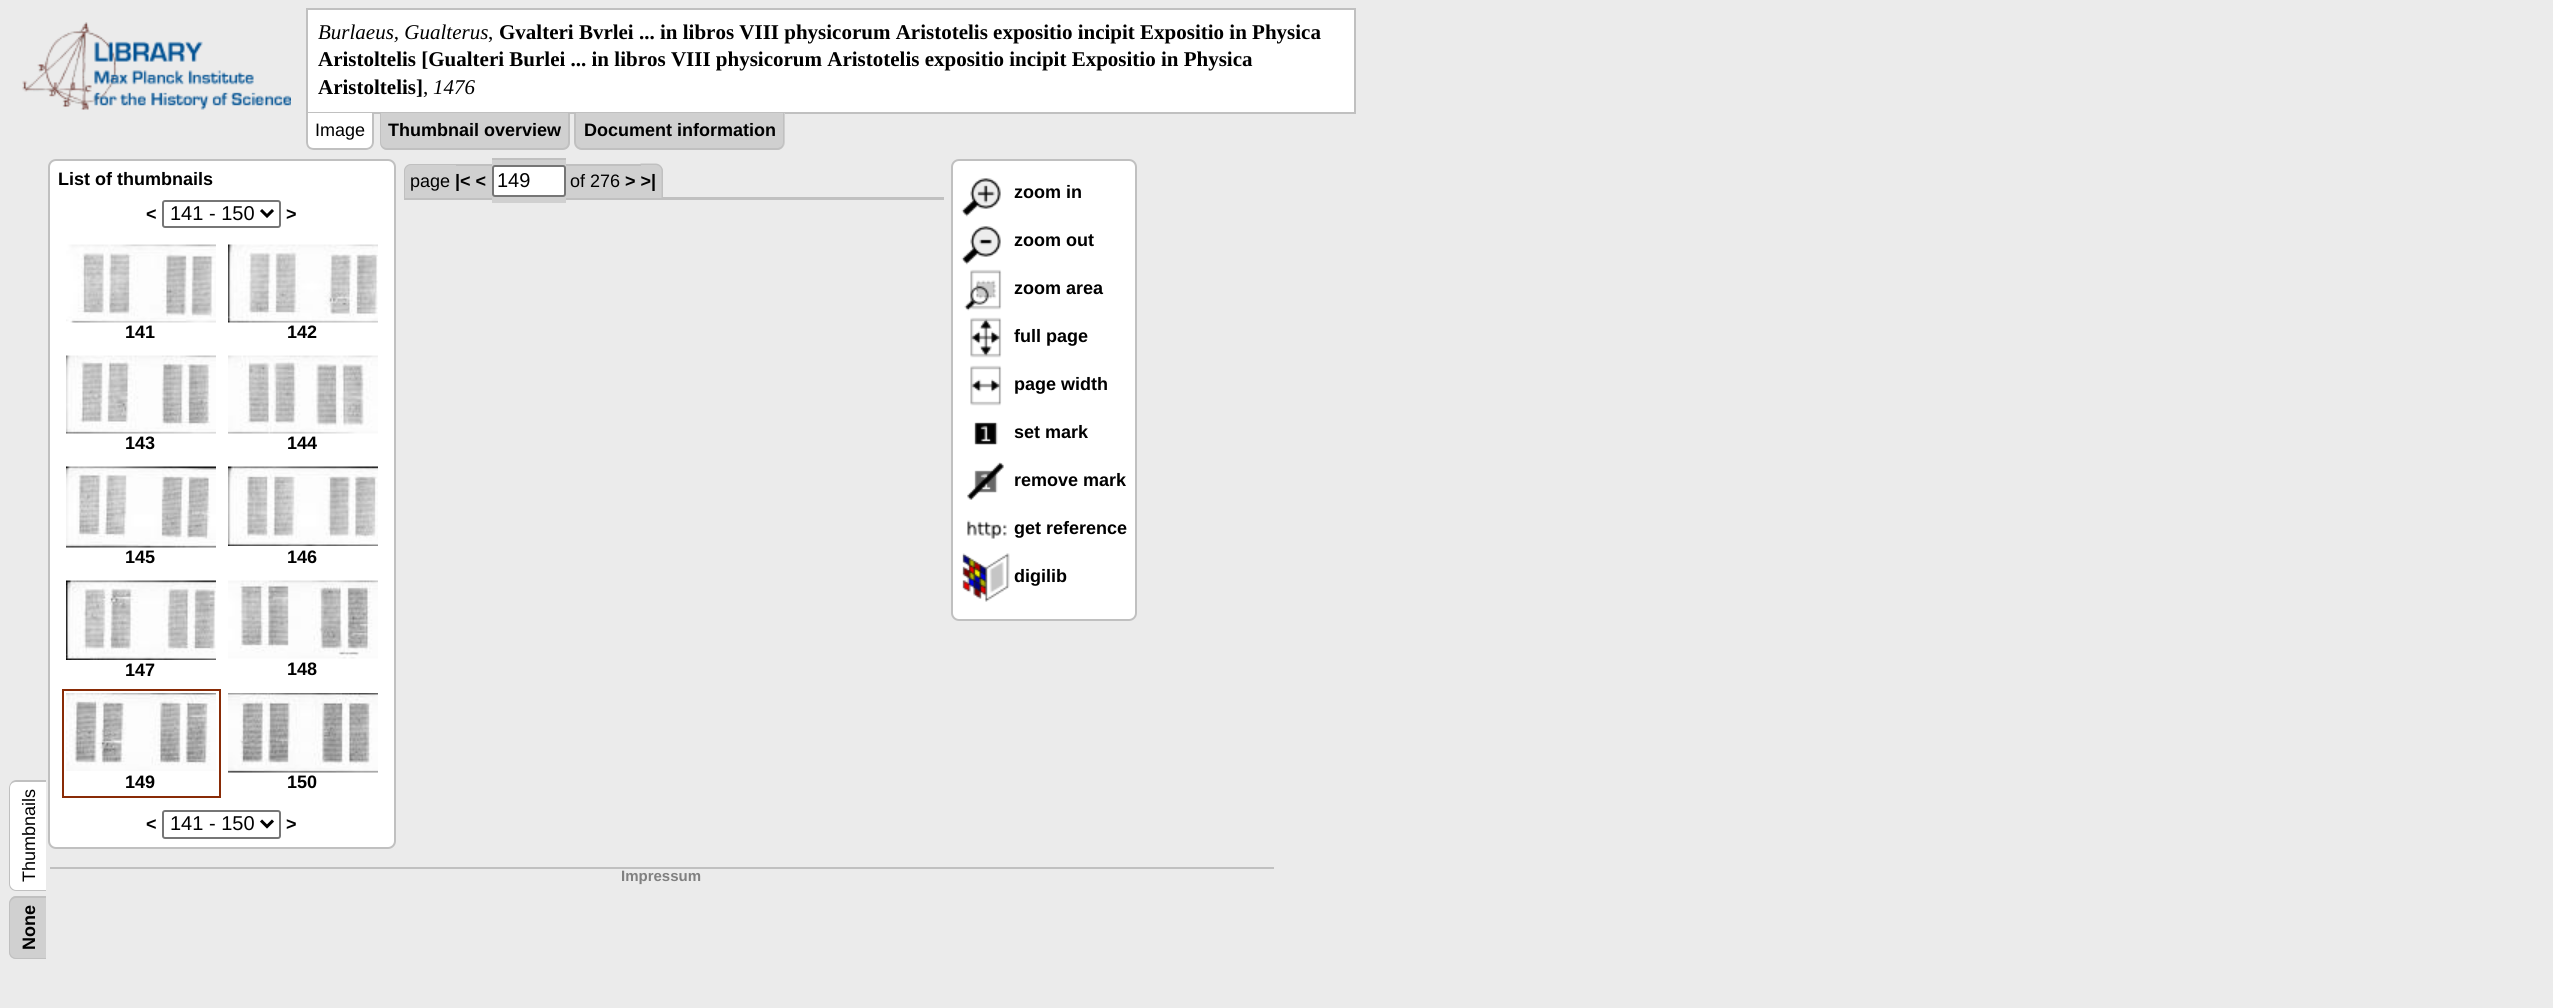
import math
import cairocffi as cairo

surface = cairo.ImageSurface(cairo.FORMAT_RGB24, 2553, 1008)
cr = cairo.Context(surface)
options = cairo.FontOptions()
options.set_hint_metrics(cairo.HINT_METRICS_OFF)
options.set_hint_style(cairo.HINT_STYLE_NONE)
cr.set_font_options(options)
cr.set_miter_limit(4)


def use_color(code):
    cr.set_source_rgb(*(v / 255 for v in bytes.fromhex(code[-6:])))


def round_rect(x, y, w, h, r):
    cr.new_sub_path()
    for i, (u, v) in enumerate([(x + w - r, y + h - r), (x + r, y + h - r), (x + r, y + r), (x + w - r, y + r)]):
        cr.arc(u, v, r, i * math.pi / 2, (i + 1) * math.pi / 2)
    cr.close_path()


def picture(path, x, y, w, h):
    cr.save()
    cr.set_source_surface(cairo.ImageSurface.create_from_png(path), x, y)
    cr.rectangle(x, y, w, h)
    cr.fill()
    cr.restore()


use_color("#ebebeb")
cr.paint()
picture("img1.png", 22, 22, 269, 88)
use_color("#ffffff")
cr.rectangle(307, 9, 1048, 104)
cr.fill_preserve()
use_color("#c0c0c0")
cr.stroke()
cr.select_font_face("Liberation Serif", cairo.FONT_SLANT_ITALIC)
cr.set_font_size(21)
use_color("#000000")
cr.move_to(318, 39)
cr.show_text("Burlaeus, Gualterus")
cr.select_font_face("Liberation Serif")
cr.move_to(488, 39)
cr.show_text(",")
cr.select_font_face("Liberation Serif", cairo.FONT_SLANT_NORMAL, cairo.FONT_WEIGHT_BOLD)
cr.move_to(499, 39)
cr.show_text("Gvalteri Bvrlei ... in libros VIII physicorum Aristotelis expositio incipit Expositio in Physica")
cr.move_to(318, 66)
cr.show_text("Aristoltelis [Gualteri Burlei ... in libros VIII physicorum Aristotelis expositio incipit Expositio in Physica")
cr.move_to(318, 94)
cr.show_text("Aristoltelis]")
cr.select_font_face("Liberation Serif")
cr.move_to(423, 94)
cr.show_text(",")
cr.select_font_face("Liberation Serif", cairo.FONT_SLANT_ITALIC)
cr.move_to(433, 94)
cr.show_text("1476")
use_color("#ffffff")
cr.new_path()
cr.move_to(306, 113)
cr.line_to(374, 113)
cr.line_to(374, 142)
cr.curve_to(374, 146.5, 370.5, 150, 366, 150)
cr.line_to(314, 150)
cr.curve_to(309.5, 150, 306, 146.5, 306, 142)
cr.close_path()
cr.fill()
use_color("#c0c0c0")
cr.set_fill_rule(cairo.FILL_RULE_EVEN_ODD)
cr.new_path()
cr.move_to(306, 112)
cr.line_to(374, 112)
cr.line_to(374, 142)
cr.curve_to(374, 147, 370, 150, 366, 150)
cr.line_to(314, 150)
cr.curve_to(309, 150, 306, 147, 306, 142)
cr.close_path()
cr.move_to(308, 112)
cr.line_to(372, 112)
cr.line_to(372, 142)
cr.curve_to(372, 146, 369, 148, 366, 148)
cr.line_to(314, 148)
cr.curve_to(310, 148, 308, 146, 308, 142)
cr.close_path()
cr.fill()
cr.select_font_face("Liberation Sans")
cr.set_font_size(18)
use_color("#000000")
cr.move_to(315, 136)
cr.show_text("Image")
use_color("#d0d0d0")
cr.new_path()
cr.move_to(380, 113)
cr.line_to(570, 113)
cr.line_to(570, 142)
cr.curve_to(570, 146.5, 566.5, 150, 562, 150)
cr.line_to(388, 150)
cr.curve_to(383.5, 150, 380, 146.5, 380, 142)
cr.close_path()
cr.fill()
use_color("#c0c0c0")
cr.new_path()
cr.move_to(380, 112)
cr.line_to(570, 112)
cr.line_to(570, 142)
cr.curve_to(570, 147, 567, 150, 562, 150)
cr.line_to(387, 150)
cr.curve_to(383, 150, 380, 147, 380, 142)
cr.close_path()
cr.move_to(381, 112)
cr.line_to(568, 112)
cr.line_to(568, 142)
cr.curve_to(568, 146, 566, 148, 562, 148)
cr.line_to(387, 148)
cr.curve_to(384, 148, 381, 146, 381, 142)
cr.close_path()
cr.fill()
cr.select_font_face("Liberation Sans", cairo.FONT_SLANT_NORMAL, cairo.FONT_WEIGHT_BOLD)
use_color("#000000")
cr.move_to(388, 136)
cr.show_text("Thumbnail overview")
use_color("#d0d0d0")
cr.new_path()
cr.move_to(575, 113)
cr.line_to(785, 113)
cr.line_to(785, 142)
cr.curve_to(785, 146.5, 781.5, 150, 777, 150)
cr.line_to(583, 150)
cr.curve_to(578.5, 150, 575, 146.5, 575, 142)
cr.close_path()
cr.fill()
use_color("#c0c0c0")
cr.new_path()
cr.move_to(574, 112)
cr.line_to(784, 112)
cr.line_to(784, 142)
cr.curve_to(784, 147, 781, 150, 777, 150)
cr.line_to(582, 150)
cr.curve_to(578, 150, 574, 147, 574, 142)
cr.close_path()
cr.move_to(576, 112)
cr.line_to(783, 112)
cr.line_to(783, 142)
cr.curve_to(783, 146, 780, 148, 777, 148)
cr.line_to(582, 148)
cr.curve_to(579, 148, 576, 146, 576, 142)
cr.close_path()
cr.fill()
use_color("#000000")
cr.move_to(584, 136)
cr.show_text("Document information")
use_color("#ffffff")
round_rect(49, 160, 346, 688, 7)
cr.fill_preserve()
use_color("#c0c0c0")
cr.stroke()
use_color("#000000")
cr.move_to(58, 185)
cr.show_text("List of thumbnails")
cr.move_to(146, 220)
cr.show_text("<")
round_rect(163, 201, 117, 26, 2)
use_color("#767676")
cr.stroke()
cr.new_path()
cr.move_to(261, 210)
cr.line_to(267, 216)
cr.line_to(273, 210)
use_color("#000000")
cr.set_line_width(3)
cr.stroke()
cr.select_font_face("Liberation Sans")
cr.set_font_size(20)
cr.move_to(170, 220)
cr.show_text("141 - 150")
cr.select_font_face("Liberation Sans", cairo.FONT_SLANT_NORMAL, cairo.FONT_WEIGHT_BOLD)
cr.set_font_size(18)
cr.move_to(286, 220)
cr.show_text(">")
picture("img2.png", 66, 244, 150, 79)
cr.move_to(125, 338)
cr.show_text("141")
picture("img3.png", 228, 244, 150, 79)
cr.move_to(287, 338)
cr.show_text("142")
picture("img4.png", 66, 355, 150, 79)
cr.move_to(125, 449)
cr.show_text("143")
picture("img5.png", 228, 355, 150, 79)
cr.move_to(287, 449)
cr.show_text("144")
picture("img6.png", 66, 466, 150, 82)
cr.move_to(125, 563)
cr.show_text("145")
picture("img7.png", 228, 466, 150, 80)
cr.move_to(287, 563)
cr.show_text("146")
picture("img8.png", 66, 580, 150, 80)
cr.move_to(125, 676)
cr.show_text("147")
picture("img9.png", 228, 580, 150, 79)
cr.move_to(287, 675)
cr.show_text("148")
cr.rectangle(63, 690, 157, 107)
use_color("#892b06")
cr.set_line_width(2)
cr.stroke()
picture("img10.png", 66, 693, 150, 78)
use_color("#000000")
cr.move_to(125, 788)
cr.show_text("149")
picture("img11.png", 228, 693, 150, 80)
cr.move_to(287, 788)
cr.show_text("150")
cr.move_to(146, 830)
cr.show_text("<")
round_rect(163, 811, 117, 27, 2)
use_color("#767676")
cr.stroke()
cr.new_path()
cr.move_to(261, 820.5)
cr.line_to(267, 826.5)
cr.line_to(273, 820.5)
use_color("#000000")
cr.set_line_width(3)
cr.stroke()
cr.select_font_face("Liberation Sans")
cr.set_font_size(20)
cr.move_to(170, 830)
cr.show_text("141 - 150")
cr.select_font_face("Liberation Sans", cairo.FONT_SLANT_NORMAL, cairo.FONT_WEIGHT_BOLD)
cr.set_font_size(18)
cr.move_to(286, 830)
cr.show_text(">")
use_color("#ffffff")
cr.set_fill_rule(cairo.FILL_RULE_WINDING)
cr.new_path()
cr.move_to(9, 884)
cr.line_to(9, 788)
cr.curve_to(9, 784, 12, 780, 16, 780)
cr.line_to(46, 780)
cr.line_to(46, 891)
cr.line_to(16, 891)
cr.curve_to(12, 891, 9, 888, 9, 884)
cr.close_path()
cr.fill()
use_color("#c0c0c0")
cr.set_fill_rule(cairo.FILL_RULE_EVEN_ODD)
cr.new_path()
cr.move_to(9, 884)
cr.line_to(9, 788)
cr.curve_to(9, 784, 12, 780, 16, 780)
cr.line_to(46, 780)
cr.line_to(46, 891)
cr.line_to(16, 891)
cr.curve_to(12, 891, 9, 888, 9, 884)
cr.close_path()
cr.move_to(10, 884)
cr.line_to(10, 788)
cr.curve_to(10, 784, 13, 782, 16, 782)
cr.line_to(46, 782)
cr.line_to(46, 890)
cr.line_to(16, 890)
cr.curve_to(13, 890, 10, 887, 10, 884)
cr.close_path()
cr.fill()
cr.select_font_face("Liberation Sans")
use_color("#000000")
cr.save()
cr.translate(35, 882)
cr.rotate(-90 * math.pi / 180)
cr.move_to(0, 0)
cr.show_text("Thumbnails")
cr.restore()
use_color("#d0d0d0")
cr.set_fill_rule(cairo.FILL_RULE_WINDING)
cr.new_path()
cr.move_to(9, 952)
cr.line_to(9, 904)
cr.curve_to(9, 900, 12, 896, 16, 896)
cr.line_to(46, 896)
cr.line_to(46, 959)
cr.line_to(16, 959)
cr.curve_to(12, 959, 9, 956, 9, 952)
cr.close_path()
cr.fill()
use_color("#c0c0c0")
cr.set_fill_rule(cairo.FILL_RULE_EVEN_ODD)
cr.new_path()
cr.move_to(9, 952)
cr.line_to(9, 904)
cr.curve_to(9, 900, 12, 896, 16, 896)
cr.line_to(46, 896)
cr.line_to(46, 959)
cr.line_to(16, 959)
cr.curve_to(12, 959, 9, 956, 9, 952)
cr.close_path()
cr.move_to(10, 952)
cr.line_to(10, 904)
cr.curve_to(10, 901, 13, 898, 16, 898)
cr.line_to(46, 898)
cr.line_to(46, 958)
cr.line_to(16, 958)
cr.curve_to(13, 958, 10, 955, 10, 952)
cr.close_path()
cr.fill()
cr.select_font_face("Liberation Sans", cairo.FONT_SLANT_NORMAL, cairo.FONT_WEIGHT_BOLD)
use_color("#000000")
cr.save()
cr.translate(35, 950)
cr.rotate(-90 * math.pi / 180)
cr.move_to(0, 0)
cr.show_text("None")
cr.restore()
use_color("#c0c0c0")
cr.rectangle(404, 197, 540, 3)
cr.fill()
use_color("#d0d0d0")
cr.new_path()
cr.move_to(412, 164)
cr.line_to(456, 164)
cr.line_to(456, 198)
cr.line_to(404, 198)
cr.line_to(404, 172)
cr.curve_to(404, 167.5, 407.5, 164, 412, 164)
cr.close_path()
cr.fill()
use_color("#c0c0c0")
cr.new_path()
cr.move_to(411, 164)
cr.line_to(456, 164)
cr.line_to(456, 198)
cr.line_to(404, 198)
cr.line_to(404, 171)
cr.curve_to(404, 167, 407, 164, 411, 164)
cr.close_path()
cr.move_to(411, 165)
cr.line_to(456, 165)
cr.line_to(456, 198)
cr.line_to(405, 198)
cr.line_to(405, 171)
cr.curve_to(405, 168, 408, 165, 411, 165)
cr.close_path()
cr.fill()
use_color("#d0d0d0")
cr.rectangle(456, 166, 15, 32)
cr.fill()
use_color("#c0c0c0")
cr.rectangle(456, 164, 15, 2)
cr.fill()
use_color("#d0d0d0")
cr.rectangle(471, 164, 5, 34)
cr.fill()
use_color("#c0c0c0")
cr.rectangle(471, 164, 15, 2)
cr.fill()
use_color("#d0d0d0")
cr.rectangle(476, 166, 10, 32)
cr.fill()
cr.rectangle(486, 164, 6, 34)
cr.fill()
use_color("#c0c0c0")
cr.rectangle(486, 164, 6, 2)
cr.fill()
use_color("#d0d0d0")
cr.rectangle(492, 160, 74, 43)
cr.fill()
use_color("#c0c0c0")
cr.rectangle(492, 158, 74, 2)
cr.fill()
use_color("#d0d0d0")
cr.rectangle(566, 164, 4, 34)
cr.fill()
use_color("#c0c0c0")
cr.rectangle(566, 164, 70, 2)
cr.fill()
use_color("#d0d0d0")
cr.rectangle(570, 166, 66, 32)
cr.fill()
cr.rectangle(636, 164, 5, 34)
cr.fill()
use_color("#c0c0c0")
cr.rectangle(636, 164, 5, 2)
cr.fill()
use_color("#d0d0d0")
cr.new_path()
cr.move_to(641, 164)
cr.line_to(655, 164)
cr.curve_to(659.5, 164, 663, 167.5, 663, 172)
cr.line_to(663, 198)
cr.line_to(641, 198)
cr.close_path()
cr.fill()
use_color("#c0c0c0")
cr.new_path()
cr.move_to(640.5, 163.5)
cr.line_to(655.5, 163.5)
cr.curve_to(659.5, 163.5, 663, 167, 663, 171)
cr.line_to(663, 198)
cr.line_to(640.5, 198)
cr.close_path()
cr.move_to(640.5, 165)
cr.line_to(655.5, 165)
cr.curve_to(659, 165, 661.5, 167.5, 661.5, 171)
cr.line_to(661.5, 198)
cr.line_to(640.5, 198)
cr.close_path()
cr.fill()
cr.select_font_face("Liberation Sans")
use_color("#000000")
cr.move_to(410, 187)
cr.show_text("page")
cr.select_font_face("Liberation Sans", cairo.FONT_SLANT_NORMAL, cairo.FONT_WEIGHT_BOLD)
cr.move_to(455, 187)
cr.show_text("|< <")
use_color("#ffffff")
round_rect(493, 166, 72, 30, 2)
cr.fill_preserve()
use_color("#767676")
cr.set_line_width(2)
cr.stroke()
cr.select_font_face("Liberation Sans")
cr.set_font_size(20)
use_color("#000000")
cr.move_to(497, 187)
cr.show_text("149")
cr.set_font_size(18)
cr.move_to(570, 187)
cr.show_text("of 276")
cr.select_font_face("Liberation Sans", cairo.FONT_SLANT_NORMAL, cairo.FONT_WEIGHT_BOLD)
cr.move_to(625, 187)
cr.show_text("> >|")
use_color("#ffffff")
round_rect(952, 160, 184, 460, 7)
cr.fill_preserve()
use_color("#c0c0c0")
cr.stroke()
picture("img12.png", 961, 178, 40, 39)
use_color("#000000")
cr.move_to(1014, 198)
cr.show_text("zoom in")
picture("img13.png", 961, 226, 40, 39)
cr.move_to(1014, 246)
cr.show_text("zoom out")
picture("img14.png", 964, 269, 38, 42)
cr.move_to(1014, 294)
cr.show_text("zoom area")
picture("img15.png", 970, 317, 32, 41)
cr.move_to(1014, 342)
cr.show_text("full page")
picture("img16.png", 970, 365, 32, 41)
cr.move_to(1014, 390)
cr.show_text("page width")
picture("img17.png", 974, 422, 24, 23)
cr.move_to(1014, 438)
cr.show_text("set mark")
picture("img18.png", 967, 462, 37, 38)
cr.move_to(1014, 486)
cr.show_text("remove mark")
picture("img19.png", 967, 520, 40, 19)
cr.move_to(1014, 534)
cr.show_text("get reference")
picture("img20.png", 962, 553, 48, 49)
cr.move_to(1014, 582)
cr.show_text("digilib")
use_color("#c0c0c0")
cr.rectangle(50, 867, 1224, 2)
cr.fill()
cr.set_font_size(15)
use_color("#808080")
cr.move_to(621, 881)
cr.show_text("Impressum")
surface.write_to_png("result.png")
